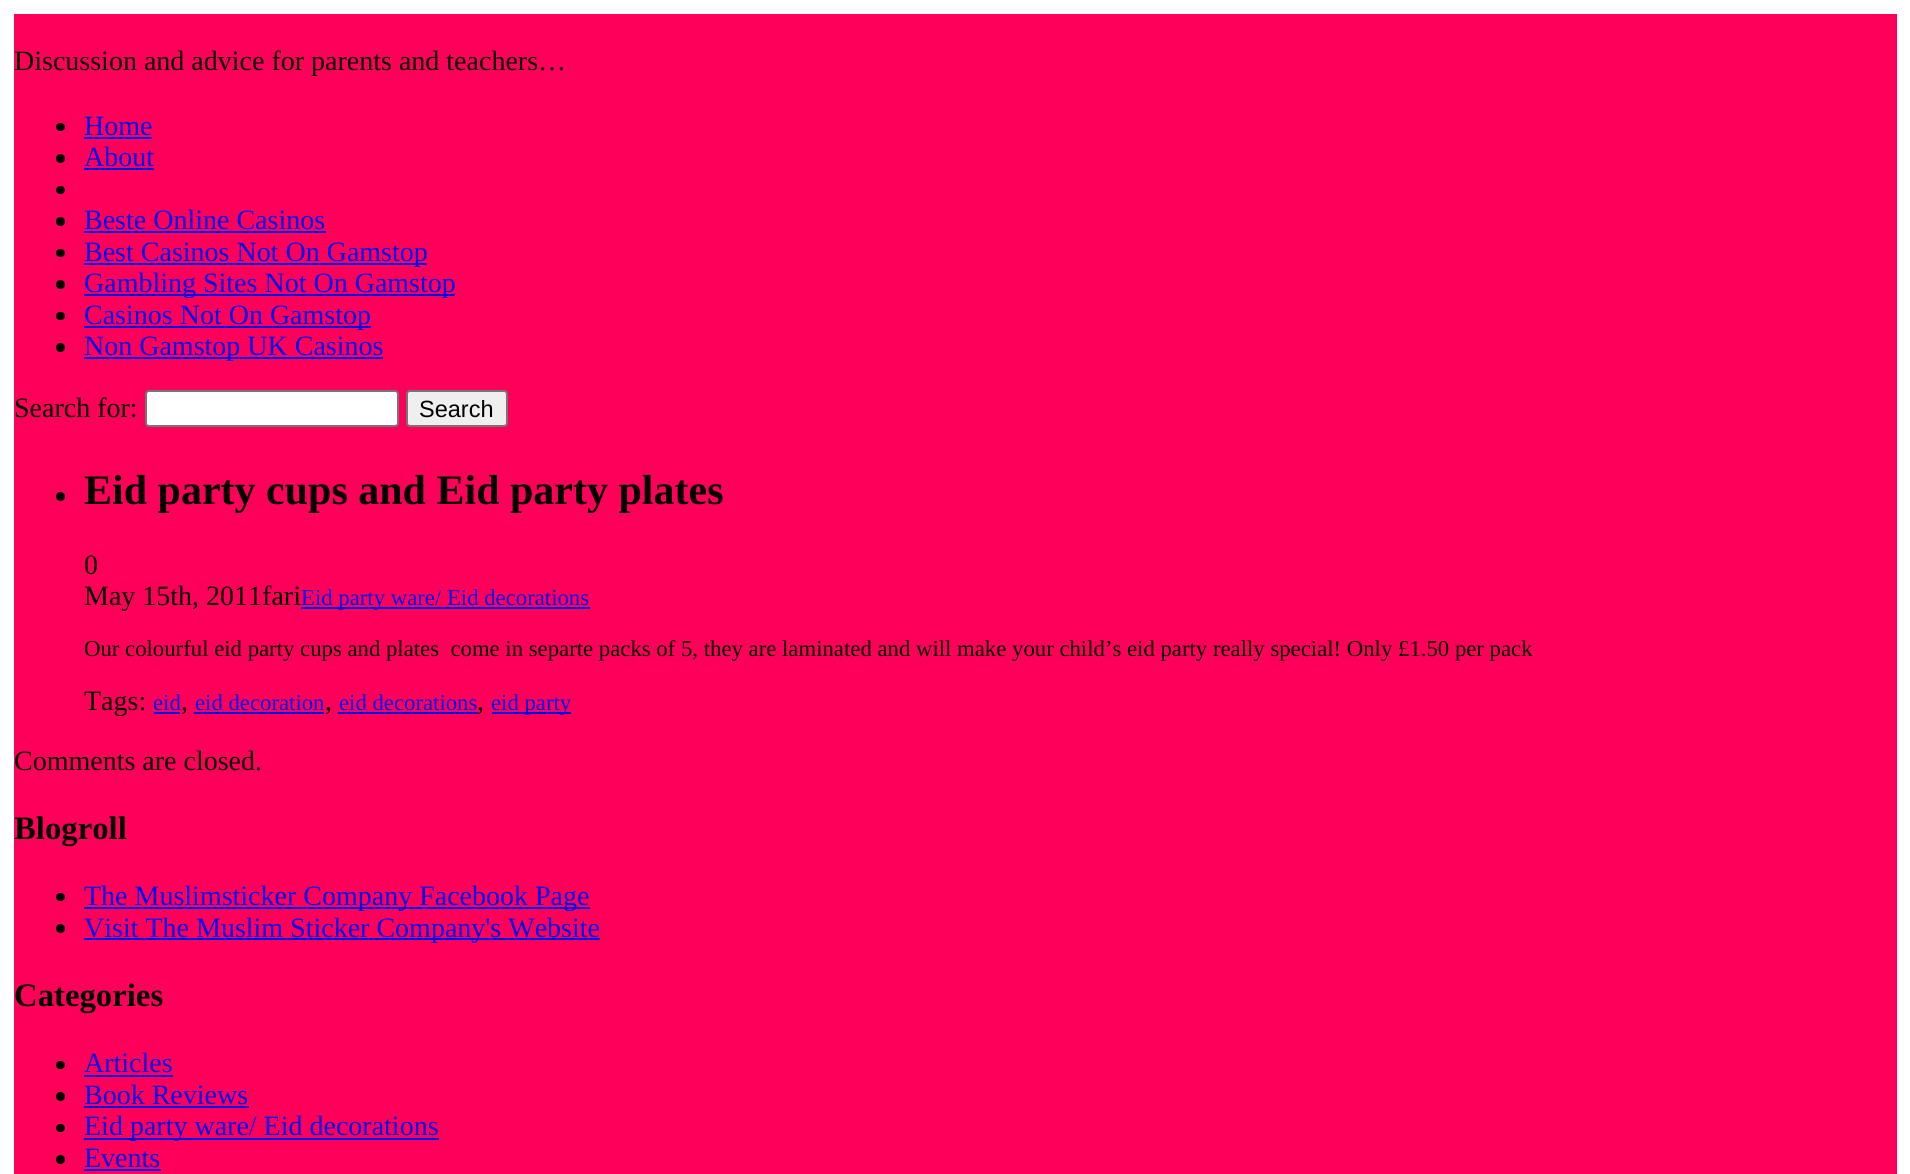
import math
import cairocffi as cairo

surface = cairo.ImageSurface(cairo.FORMAT_RGB24, 1910, 1174)
cr = cairo.Context(surface)
options = cairo.FontOptions()
options.set_hint_metrics(cairo.HINT_METRICS_OFF)
options.set_hint_style(cairo.HINT_STYLE_NONE)
cr.set_font_options(options)
cr.set_miter_limit(4)


def use_color(code):
    cr.set_source_rgb(*(v / 255 for v in bytes.fromhex(code[-6:])))


def round_rect(x, y, w, h, r):
    cr.new_sub_path()
    for i, (u, v) in enumerate([(x + w - r, y + h - r), (x + r, y + h - r), (x + r, y + r), (x + w - r, y + r)]):
        cr.arc(u, v, r, i * math.pi / 2, (i + 1) * math.pi / 2)
    cr.close_path()


use_color("#ffffff")
cr.paint()
use_color("#fe0059")
cr.rectangle(14, 14, 1883, 1160)
cr.fill()
cr.select_font_face("Liberation Serif")
cr.set_font_size(28)
use_color("#000000")
cr.move_to(14, 70)
cr.show_text("Discussion and advice for parents and teachers…")
round_rect(56, 123, 9, 8, 4)
cr.fill()
use_color("#0000ee")
cr.move_to(84, 135)
cr.show_text("Home")
cr.rectangle(84, 137, 68, 2)
cr.fill()
use_color("#000000")
cr.arc(60.5, 158.5, 4.5, 0, 2 * math.pi)
cr.fill()
use_color("#0000ee")
cr.move_to(84, 166)
cr.show_text("About")
cr.rectangle(84, 168, 70, 2)
cr.fill()
use_color("#000000")
round_rect(56, 186, 9, 8, 4)
cr.fill()
cr.arc(60.5, 221.5, 4.5, 0, 2 * math.pi)
cr.fill()
use_color("#0000ee")
cr.move_to(84, 229)
cr.show_text("Beste Online Casinos")
cr.rectangle(84, 231, 242, 2)
cr.fill()
use_color("#000000")
round_rect(56, 249, 9, 8, 4)
cr.fill()
use_color("#0000ee")
cr.rectangle(84, 263, 343, 2)
cr.fill()
cr.move_to(84, 261)
cr.show_text("Best Casinos Not On Gamstop")
use_color("#000000")
cr.new_path()
cr.arc(60.5, 284.5, 4.5, 0, 2 * math.pi)
cr.fill()
use_color("#0000ee")
cr.rectangle(84, 294, 371, 2)
cr.fill()
cr.move_to(84, 292)
cr.show_text("Gambling Sites Not On Gamstop")
use_color("#000000")
round_rect(56, 312, 9, 8, 4)
cr.fill()
use_color("#0000ee")
cr.rectangle(84, 326, 287, 2)
cr.fill()
cr.move_to(84, 324)
cr.show_text("Casinos Not On Gamstop")
use_color("#000000")
cr.new_path()
cr.arc(60.5, 347.5, 4.5, 0, 2 * math.pi)
cr.fill()
use_color("#0000ee")
cr.rectangle(84, 357, 299, 2)
cr.fill()
cr.move_to(84, 355)
cr.show_text("Non Gamstop UK Casinos")
use_color("#000000")
cr.move_to(14, 417)
cr.show_text("Search for:")
use_color("#ffffff")
round_rect(146, 391, 252, 35, 3)
cr.fill_preserve()
use_color("#767676")
cr.stroke()
use_color("#efefef")
round_rect(407, 391, 100, 35, 3)
cr.fill_preserve()
use_color("#767676")
cr.stroke()
cr.select_font_face("Liberation Sans")
cr.set_font_size(23.5)
use_color("#000000")
cr.move_to(419, 417)
cr.show_text("Search")
cr.new_path()
cr.arc(60.5, 496.5, 4.5, 0, 2 * math.pi)
cr.fill()
cr.select_font_face("Liberation Serif", cairo.FONT_SLANT_NORMAL, cairo.FONT_WEIGHT_BOLD)
cr.set_font_size(42)
cr.move_to(84, 504)
cr.show_text("Eid party cups and Eid party plates")
cr.select_font_face("Liberation Serif")
cr.set_font_size(28)
cr.move_to(84, 574)
cr.show_text("0")
cr.move_to(84, 605)
cr.show_text("May 15th, 2011fari")
use_color("#0000ee")
cr.rectangle(301, 607, 289, 2)
cr.fill()
cr.set_font_size(22.75)
cr.move_to(301, 605)
cr.show_text("Eid party ware/ Eid decorations")
use_color("#000000")
cr.move_to(84, 656)
cr.show_text("Our colourful eid party cups and plates  come in separte packs of 5, they are laminated and will make your child’s eid party really special! Only £1.50 per pack")
cr.set_font_size(28)
cr.move_to(84, 710)
cr.show_text("Tags:")
cr.set_font_size(22.75)
use_color("#0000ee")
cr.move_to(153, 710)
cr.show_text("eid")
cr.set_font_size(28)
use_color("#000000")
cr.move_to(181, 710)
cr.show_text(",")
use_color("#0000ee")
cr.rectangle(154, 712, 26, 2)
cr.fill()
cr.set_font_size(22.75)
cr.move_to(195, 710)
cr.show_text("eid decoration")
cr.set_font_size(28)
use_color("#000000")
cr.move_to(325, 710)
cr.show_text(",")
use_color("#0000ee")
cr.rectangle(194, 712, 130, 2)
cr.fill()
cr.set_font_size(22.75)
cr.move_to(339, 710)
cr.show_text("eid decorations")
cr.rectangle(338, 712, 140, 2)
cr.fill()
cr.set_font_size(28)
use_color("#000000")
cr.move_to(477, 710)
cr.show_text(",")
use_color("#0000ee")
cr.rectangle(492, 712, 79, 2)
cr.fill()
cr.set_font_size(22.75)
cr.move_to(491, 710)
cr.show_text("eid party")
cr.set_font_size(28)
use_color("#000000")
cr.move_to(14, 770)
cr.show_text("Comments are closed.")
cr.select_font_face("Liberation Serif", cairo.FONT_SLANT_NORMAL, cairo.FONT_WEIGHT_BOLD)
cr.set_font_size(32.75)
cr.move_to(14, 839)
cr.show_text("Blogroll")
round_rect(56, 893, 9, 8, 4)
cr.fill()
use_color("#0000ee")
cr.rectangle(84, 907, 506, 2)
cr.fill()
cr.select_font_face("Liberation Serif")
cr.set_font_size(28)
cr.move_to(84, 905)
cr.show_text("The Muslimsticker Company Facebook Page")
use_color("#000000")
cr.new_path()
cr.arc(60.5, 928.5, 4.5, 0, 2 * math.pi)
cr.fill()
use_color("#0000ee")
cr.rectangle(84, 938, 516, 2)
cr.fill()
cr.move_to(84, 937)
cr.show_text("Visit The Muslim Sticker Company's Website")
cr.select_font_face("Liberation Serif", cairo.FONT_SLANT_NORMAL, cairo.FONT_WEIGHT_BOLD)
cr.set_font_size(32.75)
use_color("#000000")
cr.move_to(14, 1006)
cr.show_text("Categories")
round_rect(56, 1061, 9, 8, 4)
cr.fill()
cr.select_font_face("Liberation Serif")
cr.set_font_size(28)
use_color("#0000ee")
cr.move_to(84, 1072)
cr.show_text("Articles")
cr.rectangle(84, 1075, 89, 2)
cr.fill()
use_color("#000000")
cr.arc(60.5, 1096.5, 4.5, 0, 2 * math.pi)
cr.fill()
use_color("#0000ee")
cr.move_to(84, 1104)
cr.show_text("Book Reviews")
cr.rectangle(84, 1106, 165, 2)
cr.fill()
use_color("#000000")
round_rect(56, 1124, 9, 8, 4)
cr.fill()
use_color("#0000ee")
cr.rectangle(84, 1138, 355, 2)
cr.fill()
cr.move_to(84, 1135)
cr.show_text("Eid party ware/ Eid decorations")
use_color("#000000")
cr.new_path()
cr.arc(60.5, 1159.5, 4.5, 0, 2 * math.pi)
cr.fill()
use_color("#0000ee")
cr.move_to(84, 1167)
cr.show_text("Events")
cr.rectangle(84, 1169, 77, 2)
cr.fill()
surface.write_to_png("result.png")
